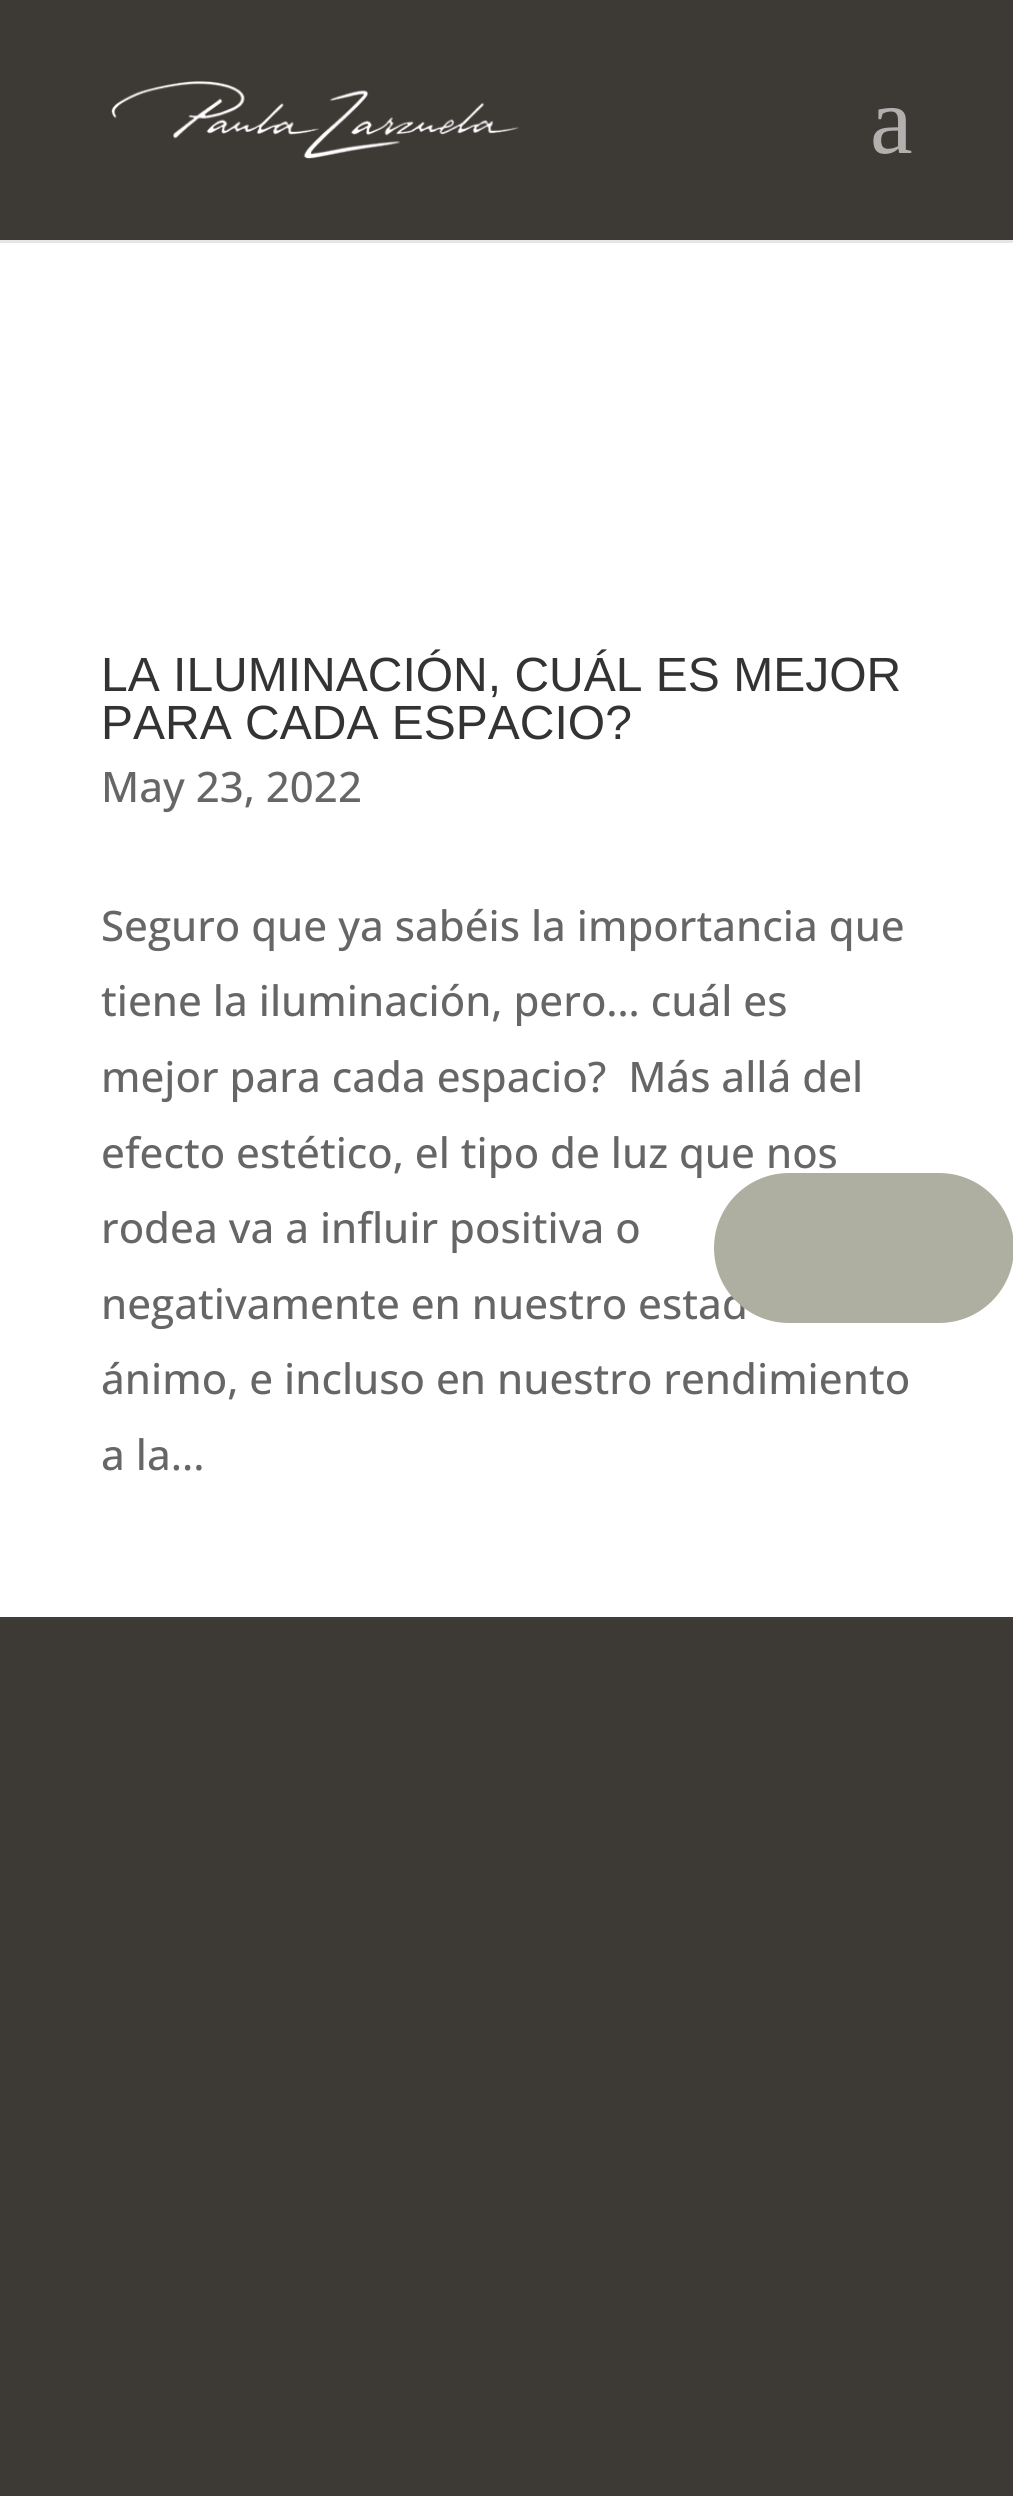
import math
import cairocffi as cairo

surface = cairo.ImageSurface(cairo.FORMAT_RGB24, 1013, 2496)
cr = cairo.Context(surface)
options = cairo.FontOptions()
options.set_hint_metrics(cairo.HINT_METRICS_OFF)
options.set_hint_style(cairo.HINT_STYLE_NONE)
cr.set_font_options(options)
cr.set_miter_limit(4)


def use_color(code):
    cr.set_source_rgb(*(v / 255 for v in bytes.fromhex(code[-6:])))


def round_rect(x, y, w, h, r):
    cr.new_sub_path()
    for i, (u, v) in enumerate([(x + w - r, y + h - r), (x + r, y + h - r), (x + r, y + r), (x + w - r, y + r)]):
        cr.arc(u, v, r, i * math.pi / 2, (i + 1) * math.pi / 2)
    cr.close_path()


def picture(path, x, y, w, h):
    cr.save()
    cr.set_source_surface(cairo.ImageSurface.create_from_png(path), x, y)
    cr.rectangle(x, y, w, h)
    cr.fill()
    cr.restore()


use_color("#3d3935")
cr.paint()
use_color("#e6e6e6")
cr.rectangle(0, 240, 1013, 3)
cr.fill()
picture("img1.png", 111, 81, 408, 78)
cr.select_font_face("Liberation Serif")
cr.set_font_size(96)
use_color("#b1b0ae")
cr.move_to(870, 153)
cr.show_text("a")
use_color("#ffffff")
cr.rectangle(0, 243, 1013, 1374)
cr.fill()
cr.select_font_face("Liberation Sans")
cr.set_font_size(48)
use_color("#333333")
cr.move_to(101, 691)
cr.show_text("LA ILUMINACIÓN, CUÁL ES MEJOR")
cr.move_to(101, 739)
cr.show_text("PARA CADA ESPACIO?")
cr.select_font_face("Open Sans Medium")
cr.set_font_size(42)
use_color("#666666")
cr.move_to(101, 802)
cr.show_text("May 23, 2022")
cr.move_to(101, 941)
cr.show_text("Seguro que ya sabéis la importancia que")
cr.move_to(101, 1016)
cr.show_text("tiene la iluminación, pero… cuál es")
cr.move_to(101, 1092)
cr.show_text("mejor para cada espacio?  Más allá del")
cr.move_to(101, 1168)
cr.show_text("efecto estético, el tipo de luz que nos")
cr.move_to(101, 1243)
cr.show_text("rodea va a influir positiva o")
cr.move_to(101, 1319)
cr.show_text("negativamente en nuestro estad")
cr.move_to(101, 1394)
cr.show_text("ánimo, e incluso en nuestro rendimiento")
cr.move_to(101, 1470)
cr.show_text("a la...")
use_color("#3e3e3e")
cr.rectangle(0, 1617, 1013, 3)
cr.fill()
use_color("#afafa1")
round_rect(714, 1173, 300, 150, 75)
cr.fill()
surface.write_to_png("result.png")
